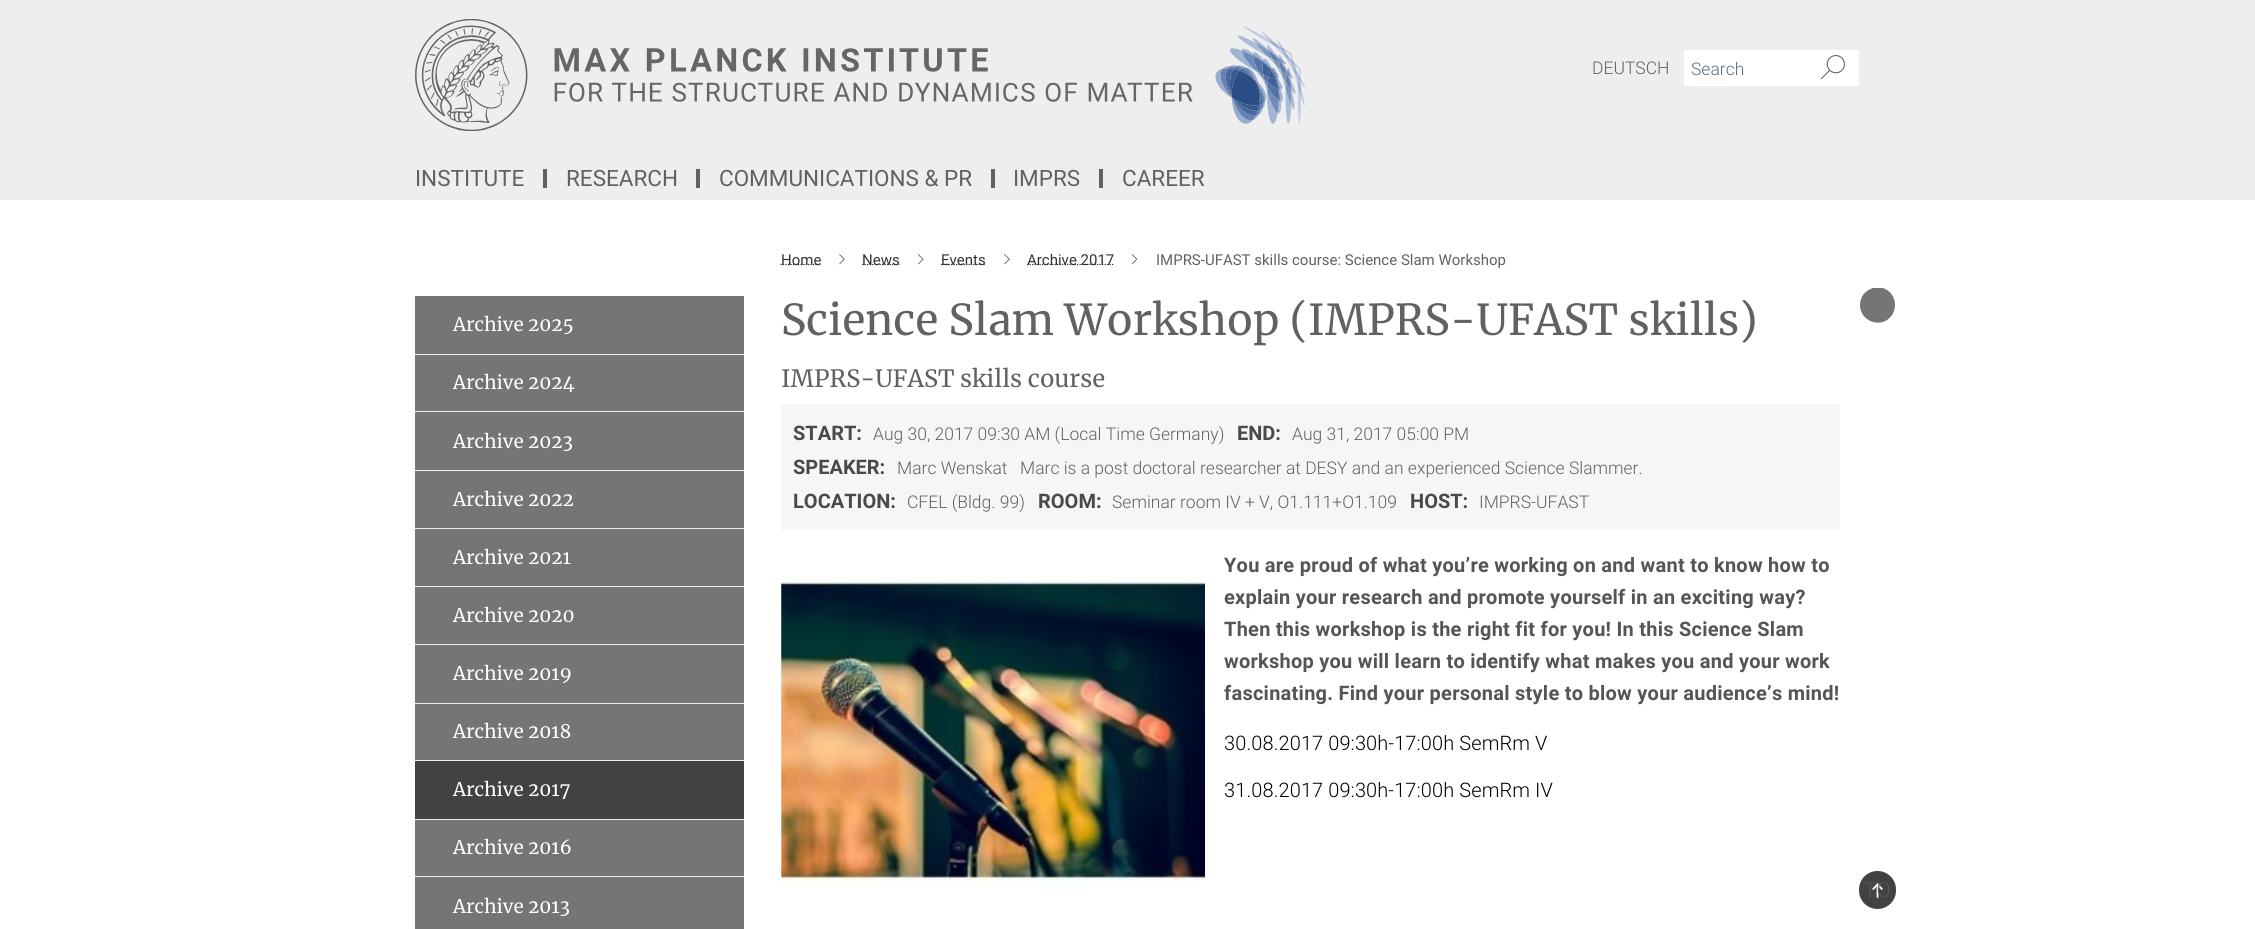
import math
import cairocffi as cairo

surface = cairo.ImageSurface(cairo.FORMAT_RGB24, 2255, 929)
cr = cairo.Context(surface)
options = cairo.FontOptions()
options.set_hint_metrics(cairo.HINT_METRICS_OFF)
options.set_hint_style(cairo.HINT_STYLE_NONE)
cr.set_font_options(options)
cr.set_miter_limit(4)


def use_color(code):
    cr.set_source_rgb(*(v / 255 for v in bytes.fromhex(code[-6:])))


def spaced_text(x, y, s, letter, word):
    cr.move_to(x, y)
    for ch in s:
        cr.show_text(ch)
        cr.rel_move_to(letter + word * (ch == ' '), 0)


def round_rect(x, y, w, h, r):
    cr.new_sub_path()
    for i, (u, v) in enumerate([(x + w - r, y + h - r), (x + r, y + h - r), (x + r, y + r), (x + w - r, y + r)]):
        cr.arc(u, v, r, i * math.pi / 2, (i + 1) * math.pi / 2)
    cr.close_path()


def picture(path, x, y, w, h):
    cr.save()
    cr.set_source_surface(cairo.ImageSurface.create_from_png(path), x, y)
    cr.rectangle(x, y, w, h)
    cr.fill()
    cr.restore()


use_color("#ffffff")
cr.paint()
use_color("#eeeeee")
cr.rectangle(0, 0, 2255, 200)
cr.fill()
picture("img1.png", 415, 19, 890, 112)
cr.select_font_face("Roboto Light")
cr.set_font_size(17.5)
use_color("#616161")
cr.move_to(1592, 74)
cr.show_text("DEUTSCH")
use_color("#ffffff")
cr.rectangle(1684, 50, 175, 36)
cr.fill()
use_color("#546e7a")
cr.move_to(1691, 75)
cr.show_text("Search")
picture("img2.png", 1821, 55, 24, 24)
use_color("#616161")
cr.rectangle(543, 169, 4, 19)
cr.fill()
cr.select_font_face("Roboto")
cr.set_font_size(22.5)
cr.move_to(415, 186)
cr.show_text("INSTITUTE")
cr.rectangle(696, 169, 4, 19)
cr.fill()
cr.move_to(566, 186)
cr.show_text("RESEARCH")
cr.rectangle(991, 169, 4, 19)
cr.fill()
cr.move_to(719, 186)
cr.show_text("COMMUNICATIONS & PR")
cr.rectangle(1099, 169, 4, 19)
cr.fill()
cr.move_to(1013, 186)
cr.show_text("IMPRS")
cr.move_to(1122, 186)
cr.show_text("CAREER")
use_color("#757575")
cr.rectangle(415, 296, 329, 58)
cr.fill()
use_color("#eeeeee")
cr.rectangle(415, 354, 329, 1)
cr.fill()
cr.select_font_face("Merriweather")
cr.set_font_size(18.75)
use_color("#ffffff")
cr.move_to(453, 331)
cr.show_text("Archive 2025")
use_color("#757575")
cr.rectangle(415, 355, 329, 115)
cr.fill()
use_color("#eeeeee")
cr.rectangle(415, 411, 329, 1)
cr.fill()
use_color("#ffffff")
cr.move_to(453, 389)
cr.show_text("Archive 2024")
use_color("#eeeeee")
cr.rectangle(415, 470, 329, 1)
cr.fill()
use_color("#ffffff")
cr.move_to(453, 448)
cr.show_text("Archive 2023")
use_color("#757575")
cr.rectangle(415, 471, 329, 57)
cr.fill()
use_color("#eeeeee")
cr.rectangle(415, 528, 329, 1)
cr.fill()
use_color("#ffffff")
cr.move_to(453, 506)
cr.show_text("Archive 2022")
use_color("#757575")
cr.rectangle(415, 529, 329, 115)
cr.fill()
use_color("#eeeeee")
cr.rectangle(415, 586, 329, 1)
cr.fill()
use_color("#ffffff")
cr.move_to(453, 564)
cr.show_text("Archive 2021")
use_color("#eeeeee")
cr.rectangle(415, 644, 329, 1)
cr.fill()
use_color("#ffffff")
cr.move_to(453, 622)
cr.show_text("Archive 2020")
use_color("#757575")
cr.rectangle(415, 645, 329, 58)
cr.fill()
use_color("#eeeeee")
cr.rectangle(415, 703, 329, 1)
cr.fill()
use_color("#ffffff")
cr.move_to(453, 680)
cr.show_text("Archive 2019")
use_color("#757575")
cr.rectangle(415, 704, 329, 56)
cr.fill()
use_color("#eeeeee")
cr.rectangle(415, 760, 329, 1)
cr.fill()
use_color("#ffffff")
cr.move_to(453, 738)
cr.show_text("Archive 2018")
use_color("#424242")
cr.rectangle(415, 761, 329, 58)
cr.fill()
use_color("#eeeeee")
cr.rectangle(415, 819, 329, 1)
cr.fill()
use_color("#ffffff")
cr.move_to(453, 796)
cr.show_text("Archive 2017")
use_color("#757575")
cr.rectangle(415, 820, 329, 109)
cr.fill()
use_color("#eeeeee")
cr.rectangle(415, 876, 329, 1)
cr.fill()
use_color("#ffffff")
cr.move_to(453, 854)
cr.show_text("Archive 2016")
cr.move_to(453, 913)
cr.show_text("Archive 2013")
cr.new_path()
cr.move_to(780.5, 264.5)
cr.line_to(821, 264.5)
use_color("#333333")
cr.set_line_width(1.2)
cr.set_dash([1.25, 1.25])
cr.stroke()
cr.select_font_face("Roboto")
cr.set_font_size(15)
cr.move_to(781, 265)
cr.show_text("Home")
picture("img3.png", 839, 254, 6, 11)
cr.new_path()
cr.move_to(862, 264.5)
cr.line_to(900, 264.5)
cr.stroke()
cr.move_to(862, 265)
cr.show_text("News")
picture("img4.png", 918, 254, 6, 11)
cr.new_path()
cr.move_to(941, 264.5)
cr.line_to(986, 264.5)
cr.stroke()
cr.move_to(941, 265)
cr.show_text("Events")
picture("img3.png", 1004, 254, 6, 11)
cr.new_path()
cr.move_to(1027, 264.5)
cr.line_to(1114.5, 264.5)
cr.stroke()
cr.move_to(1027, 265)
cr.show_text("Archive 2017")
picture("img5.png", 1131, 254, 7, 11)
use_color("#616161")
cr.move_to(1156, 265)
cr.show_text("IMPRS-UFAST skills course: Science Slam Workshop")
cr.select_font_face("Merriweather")
cr.set_font_size(42.5)
cr.move_to(781, 335)
cr.show_text("Science Slam Workshop (IMPRS-UFAST skills)")
cr.save()
cr.rectangle(1860, 288, 35, 35)
cr.clip()
use_color("#757575")
cr.new_path()
cr.move_to(1895, 305)
cr.curve_to(1895, 308.5, 1894, 312, 1892, 315)
cr.curve_to(1882.5, 329.5, 1860, 322, 1860, 305)
cr.curve_to(1860, 288, 1882.5, 280.5, 1892, 295)
cr.curve_to(1894, 298, 1895, 301.5, 1895, 305)
cr.close_path()
cr.fill()
cr.restore()
cr.set_font_size(23.75)
cr.move_to(781, 387)
cr.show_text("IMPRS-UFAST skills course")
use_color("#f6f6f6")
cr.rectangle(781, 404, 1059, 126)
cr.fill()
cr.select_font_face("Roboto", cairo.FONT_SLANT_NORMAL, cairo.FONT_WEIGHT_BOLD)
cr.set_font_size(20)
use_color("#49494b")
cr.move_to(793, 440)
cr.show_text("START:")
cr.select_font_face("Roboto Light")
cr.set_font_size(17.5)
use_color("#616161")
cr.move_to(873, 440)
cr.show_text("Aug 30, 2017 09:30 AM (Local Time Germany)")
cr.select_font_face("Roboto", cairo.FONT_SLANT_NORMAL, cairo.FONT_WEIGHT_BOLD)
cr.set_font_size(20)
use_color("#49494b")
cr.move_to(1237, 440)
cr.show_text("END:")
cr.select_font_face("Roboto Light")
cr.set_font_size(17.5)
use_color("#616161")
cr.move_to(1292, 440)
cr.show_text("Aug 31, 2017 05:00 PM")
cr.select_font_face("Roboto", cairo.FONT_SLANT_NORMAL, cairo.FONT_WEIGHT_BOLD)
cr.set_font_size(20)
use_color("#49494b")
cr.move_to(793, 474)
cr.show_text("SPEAKER:")
cr.select_font_face("Roboto Light")
cr.set_font_size(17.5)
use_color("#616161")
cr.move_to(897, 474)
cr.show_text("Marc Wenskat")
cr.move_to(1020, 474)
cr.show_text("Marc is a post doctoral researcher at DESY and an experienced Science Slammer.")
cr.select_font_face("Roboto", cairo.FONT_SLANT_NORMAL, cairo.FONT_WEIGHT_BOLD)
cr.set_font_size(20)
use_color("#49494b")
cr.move_to(793, 508)
cr.show_text("LOCATION:")
cr.select_font_face("Roboto Light")
cr.set_font_size(17.5)
use_color("#616161")
cr.move_to(907, 508)
cr.show_text("CFEL (Bldg. 99)")
cr.select_font_face("Roboto", cairo.FONT_SLANT_NORMAL, cairo.FONT_WEIGHT_BOLD)
cr.set_font_size(20)
use_color("#49494b")
cr.move_to(1038, 508)
cr.show_text("ROOM:")
cr.select_font_face("Roboto Light")
cr.set_font_size(17.5)
use_color("#616161")
cr.move_to(1112, 508)
cr.show_text("Seminar room IV + V, O1.111+O1.109")
cr.select_font_face("Roboto", cairo.FONT_SLANT_NORMAL, cairo.FONT_WEIGHT_BOLD)
cr.set_font_size(20)
use_color("#49494b")
cr.move_to(1410, 508)
cr.show_text("HOST:")
cr.select_font_face("Roboto Light")
cr.set_font_size(17.5)
use_color("#616161")
cr.move_to(1479, 508)
cr.show_text("IMPRS-UFAST")
picture("img6.png", 781, 575, 424, 314)
cr.select_font_face("Roboto", cairo.FONT_SLANT_NORMAL, cairo.FONT_WEIGHT_BOLD)
cr.set_font_size(20)
use_color("#555555")
spaced_text(1224, 572, "You are proud of what you’re working on and want to know how to", 0.25, 0)
spaced_text(1224, 604, "explain your research and promote yourself in an exciting way?", 0.25, 0)
spaced_text(1224, 636, "Then this workshop is the right fit for you! In this Science Slam", 0.25, 0)
spaced_text(1224, 668, "workshop you will learn to identify what makes you and your work", 0.25, 0)
spaced_text(1224, 700, "fascinating. Find your personal style to blow your audience’s mind!", 0.25, 0)
cr.select_font_face("Roboto Light")
use_color("#000000")
spaced_text(1224, 750, "30.08.2017 09:30h-17:00h SemRm V", 0.1, 0)
spaced_text(1224, 797, "31.08.2017 09:30h-17:00h SemRm IV", 0.1, 0)
use_color("#424242")
round_rect(1859, 871, 37, 38, 18.5)
cr.fill()
picture("img7.png", 1872, 883, 11, 16)
cr.set_font_size(21)
use_color("#555555")
cr.move_to(1864, 897)
cr.show_text("TO")
surface.write_to_png("result.png")
